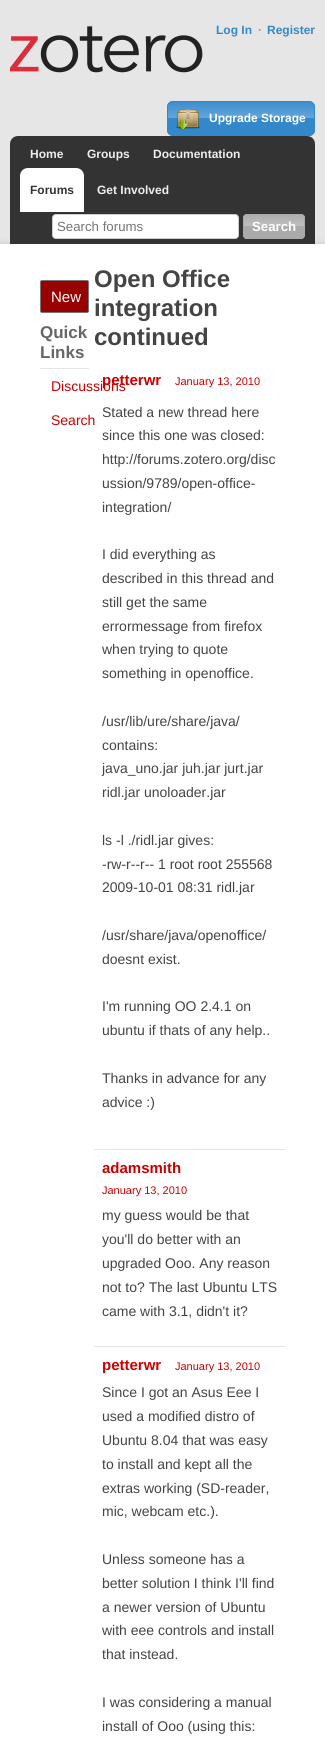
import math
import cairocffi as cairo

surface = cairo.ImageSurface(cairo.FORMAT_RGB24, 325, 1741)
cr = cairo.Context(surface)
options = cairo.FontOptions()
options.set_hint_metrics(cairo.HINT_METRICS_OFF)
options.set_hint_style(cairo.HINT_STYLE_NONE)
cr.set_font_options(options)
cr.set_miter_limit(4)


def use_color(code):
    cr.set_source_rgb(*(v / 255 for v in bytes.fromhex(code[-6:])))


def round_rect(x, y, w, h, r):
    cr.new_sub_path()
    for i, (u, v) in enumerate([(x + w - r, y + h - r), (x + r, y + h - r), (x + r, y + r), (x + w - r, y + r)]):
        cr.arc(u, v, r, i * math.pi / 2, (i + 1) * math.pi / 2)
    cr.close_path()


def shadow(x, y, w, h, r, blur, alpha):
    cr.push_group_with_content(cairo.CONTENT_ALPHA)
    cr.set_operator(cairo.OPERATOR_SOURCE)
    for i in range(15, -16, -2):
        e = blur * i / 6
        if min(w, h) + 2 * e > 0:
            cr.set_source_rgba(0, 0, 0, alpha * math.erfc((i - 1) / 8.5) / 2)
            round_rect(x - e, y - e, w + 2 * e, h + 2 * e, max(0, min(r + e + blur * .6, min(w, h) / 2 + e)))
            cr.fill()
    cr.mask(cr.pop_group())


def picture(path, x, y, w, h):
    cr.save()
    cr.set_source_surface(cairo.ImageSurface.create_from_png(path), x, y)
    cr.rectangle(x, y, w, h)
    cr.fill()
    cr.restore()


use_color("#e6e6e6")
cr.paint()
picture("img1.png", 10, 26, 193, 47)
cr.select_font_face("Liberation Sans", cairo.FONT_SLANT_NORMAL, cairo.FONT_WEIGHT_BOLD)
cr.set_font_size(12)
use_color("#3388cc")
cr.move_to(216, 34)
cr.show_text("Log In")
use_color("#999999")
cr.move_to(258, 34)
cr.show_text("·")
use_color("#3388cc")
cr.move_to(267, 34)
cr.show_text("Register")
round_rect(167, 101, 148, 35, 6)
cr.fill()
gradient = cairo.LinearGradient(241, 102, 241, 135)
gradient.add_color_stop_rgba(0, 1, 1, 1, 0.05)
gradient.add_color_stop_rgba(0.5, 1, 1, 1, 0.25)
gradient.add_color_stop_rgba(0.5, 1, 1, 1, 0)
gradient.add_color_stop_rgba(1, 1, 1, 1, 0)
cr.set_source(gradient)
cr.rectangle(167, 102, 148, 16)
cr.fill()
round_rect(167.5, 101.5, 147, 34, 5.5)
use_color("#3388cc")
cr.set_line_width(1)
cr.stroke()
picture("img2.png", 176, 109, 24, 22)
use_color("#ffffff")
cr.move_to(209, 122)
cr.show_text("Upgrade Storage")
use_color("#000000")
shadow(0, 249, 325, 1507, 0, 5, 0.5)
use_color("#333333")
cr.new_path()
cr.move_to(18, 136)
cr.line_to(307, 136)
cr.curve_to(311.5, 136, 315, 139.5, 315, 144)
cr.line_to(315, 244)
cr.line_to(10, 244)
cr.line_to(10, 144)
cr.curve_to(10, 139.5, 13.5, 136, 18, 136)
cr.close_path()
cr.fill()
use_color("#eeeeee")
cr.move_to(30, 158)
cr.show_text("Home")
cr.move_to(87, 158)
cr.show_text("Groups")
cr.move_to(153, 158)
cr.show_text("Documentation")
use_color("#ffffff")
cr.new_path()
cr.move_to(28, 168)
cr.line_to(76, 168)
cr.curve_to(80.5, 168, 84, 171.5, 84, 176)
cr.line_to(84, 212)
cr.line_to(20, 212)
cr.line_to(20, 176)
cr.curve_to(20, 171.5, 23.5, 168, 28, 168)
cr.close_path()
cr.fill()
use_color("#333333")
cr.move_to(30, 194)
cr.show_text("Forums")
use_color("#eeeeee")
cr.move_to(97, 194)
cr.show_text("Get Involved")
use_color("#ffffff")
round_rect(52, 214, 187, 25, 4)
cr.fill()
round_rect(52.5, 214.5, 186, 24, 3.5)
cr.set_source_rgba(0, 0, 0, 0.2)
cr.stroke()
cr.select_font_face("Liberation Sans")
cr.set_font_size(13.25)
use_color("#757575")
cr.move_to(57, 231)
cr.show_text("Search forums")
use_color("#aaaaaa")
round_rect(243, 214, 62, 25, 4)
cr.fill()
gradient = cairo.LinearGradient(274, 215, 274, 238)
gradient.add_color_stop_rgba(0, 1, 1, 1, 0.05)
gradient.add_color_stop_rgba(0.5, 1, 1, 1, 0.25)
gradient.add_color_stop_rgba(0.5, 1, 1, 1, 0)
gradient.add_color_stop_rgba(1, 1, 1, 1, 0)
cr.set_source(gradient)
cr.rectangle(243, 215, 62, 11)
cr.fill()
round_rect(243.5, 214.5, 61, 24, 3.5)
use_color("#aaaaaa")
cr.stroke()
cr.select_font_face("Liberation Sans", cairo.FONT_SLANT_NORMAL, cairo.FONT_WEIGHT_BOLD)
use_color("#ffffff")
cr.move_to(252, 231)
cr.show_text("Search")
cr.rectangle(0, 244, 325, 1497)
cr.fill()
use_color("#990000")
round_rect(40.5, 280.5, 48, 32, 1.5)
cr.fill_preserve()
use_color("#777777")
cr.stroke()
cr.select_font_face("Liberation Sans")
cr.set_font_size(15)
use_color("#ffffff")
cr.move_to(51, 302)
cr.show_text("New")
cr.select_font_face("Liberation Sans", cairo.FONT_SLANT_NORMAL, cairo.FONT_WEIGHT_BOLD)
cr.set_font_size(17)
use_color("#666666")
cr.move_to(40, 338)
cr.show_text("Quick")
cr.move_to(40, 358)
cr.show_text("Links")
use_color("#e6e6e6")
cr.rectangle(40, 368, 49, 1)
cr.fill()
cr.select_font_face("Liberation Sans")
cr.set_font_size(14)
use_color("#cc0000")
cr.move_to(51, 391)
cr.show_text("Discussions")
cr.move_to(51, 425)
cr.show_text("Search")
cr.select_font_face("Liberation Sans", cairo.FONT_SLANT_NORMAL, cairo.FONT_WEIGHT_BOLD)
cr.set_font_size(24)
use_color("#444444")
cr.move_to(94, 287)
cr.show_text("Open Office")
cr.move_to(94, 316)
cr.show_text("integration")
cr.move_to(94, 345)
cr.show_text("continued")
cr.set_font_size(15)
use_color("#cc0000")
cr.move_to(102, 385)
cr.show_text("petterwr")
cr.select_font_face("Liberation Sans")
cr.set_font_size(11)
cr.move_to(175, 385)
cr.show_text("January 13, 2010")
cr.set_font_size(14)
use_color("#444444")
cr.move_to(102, 417)
cr.show_text("Stated a new thread here")
cr.move_to(102, 440)
cr.show_text("since this one was closed:")
cr.move_to(102, 464)
cr.show_text("http://forums.zotero.org/disc")
cr.move_to(102, 488)
cr.show_text("ussion/9789/open-office-")
cr.move_to(102, 512)
cr.show_text("integration/")
cr.move_to(102, 559)
cr.show_text("I did everything as")
cr.move_to(102, 583)
cr.show_text("described in this thread and")
cr.move_to(102, 607)
cr.show_text("still get the same")
cr.move_to(102, 631)
cr.show_text("errormessage from firefox")
cr.move_to(102, 654)
cr.show_text("when trying to quote")
cr.move_to(102, 678)
cr.show_text("something in openoffice.")
cr.move_to(102, 726)
cr.show_text("/usr/lib/ure/share/java/")
cr.move_to(102, 750)
cr.show_text("contains:")
cr.move_to(102, 773)
cr.show_text("java_uno.jar juh.jar jurt.jar")
cr.move_to(102, 797)
cr.show_text("ridl.jar unoloader.jar")
cr.move_to(102, 845)
cr.show_text("ls -l ./ridl.jar gives:")
cr.move_to(102, 869)
cr.show_text("-rw-r--r-- 1 root root 255568")
cr.move_to(102, 892)
cr.show_text("2009-10-01 08:31 ridl.jar")
cr.move_to(102, 940)
cr.show_text("/usr/share/java/openoffice/")
cr.move_to(102, 964)
cr.show_text("doesnt exist.")
cr.move_to(102, 1011)
cr.show_text("I'm running OO 2.4.1 on")
cr.move_to(102, 1035)
cr.show_text("ubuntu if thats of any help..")
cr.move_to(102, 1083)
cr.show_text("Thanks in advance for any")
cr.move_to(102, 1107)
cr.show_text("advice :)")
use_color("#e6e6e6")
cr.rectangle(94, 1149, 191, 1)
cr.fill()
cr.rectangle(94, 1346, 191, 1)
cr.fill()
cr.select_font_face("Liberation Sans", cairo.FONT_SLANT_NORMAL, cairo.FONT_WEIGHT_BOLD)
cr.set_font_size(15)
use_color("#cc0000")
cr.move_to(102, 1173)
cr.show_text("adamsmith")
cr.select_font_face("Liberation Sans")
cr.set_font_size(11)
cr.move_to(102, 1194)
cr.show_text("January 13, 2010")
cr.set_font_size(14)
use_color("#444444")
cr.move_to(102, 1220)
cr.show_text("my guess would be that")
cr.move_to(102, 1244)
cr.show_text("you'll do better with an")
cr.move_to(102, 1268)
cr.show_text("upgraded Ooo. Any reason")
cr.move_to(102, 1292)
cr.show_text("not to? The last Ubuntu LTS")
cr.move_to(102, 1316)
cr.show_text("came with 3.1, didn't it?")
cr.select_font_face("Liberation Sans", cairo.FONT_SLANT_NORMAL, cairo.FONT_WEIGHT_BOLD)
cr.set_font_size(15)
use_color("#cc0000")
cr.move_to(102, 1370)
cr.show_text("petterwr")
cr.select_font_face("Liberation Sans")
cr.set_font_size(11)
cr.move_to(175, 1370)
cr.show_text("January 13, 2010")
cr.set_font_size(14)
use_color("#444444")
cr.move_to(102, 1397)
cr.show_text("Since I got an Asus Eee I")
cr.move_to(102, 1421)
cr.show_text("used a modified distro of")
cr.move_to(102, 1445)
cr.show_text("Ubuntu 8.04 that was easy")
cr.move_to(102, 1469)
cr.show_text("to install and kept all the")
cr.move_to(102, 1493)
cr.show_text("extras working (SD-reader,")
cr.move_to(102, 1516)
cr.show_text("mic, webcam etc.).")
cr.move_to(102, 1564)
cr.show_text("Unless someone has a")
cr.move_to(102, 1588)
cr.show_text("better solution I think I'll find")
cr.move_to(102, 1612)
cr.show_text("a newer version of Ubuntu")
cr.move_to(102, 1635)
cr.show_text("with eee controls and install")
cr.move_to(102, 1659)
cr.show_text("that instead.")
cr.move_to(102, 1707)
cr.show_text("I was considering a manual")
cr.move_to(102, 1731)
cr.show_text("install of Ooo (using this:")
surface.write_to_png("result.png")
